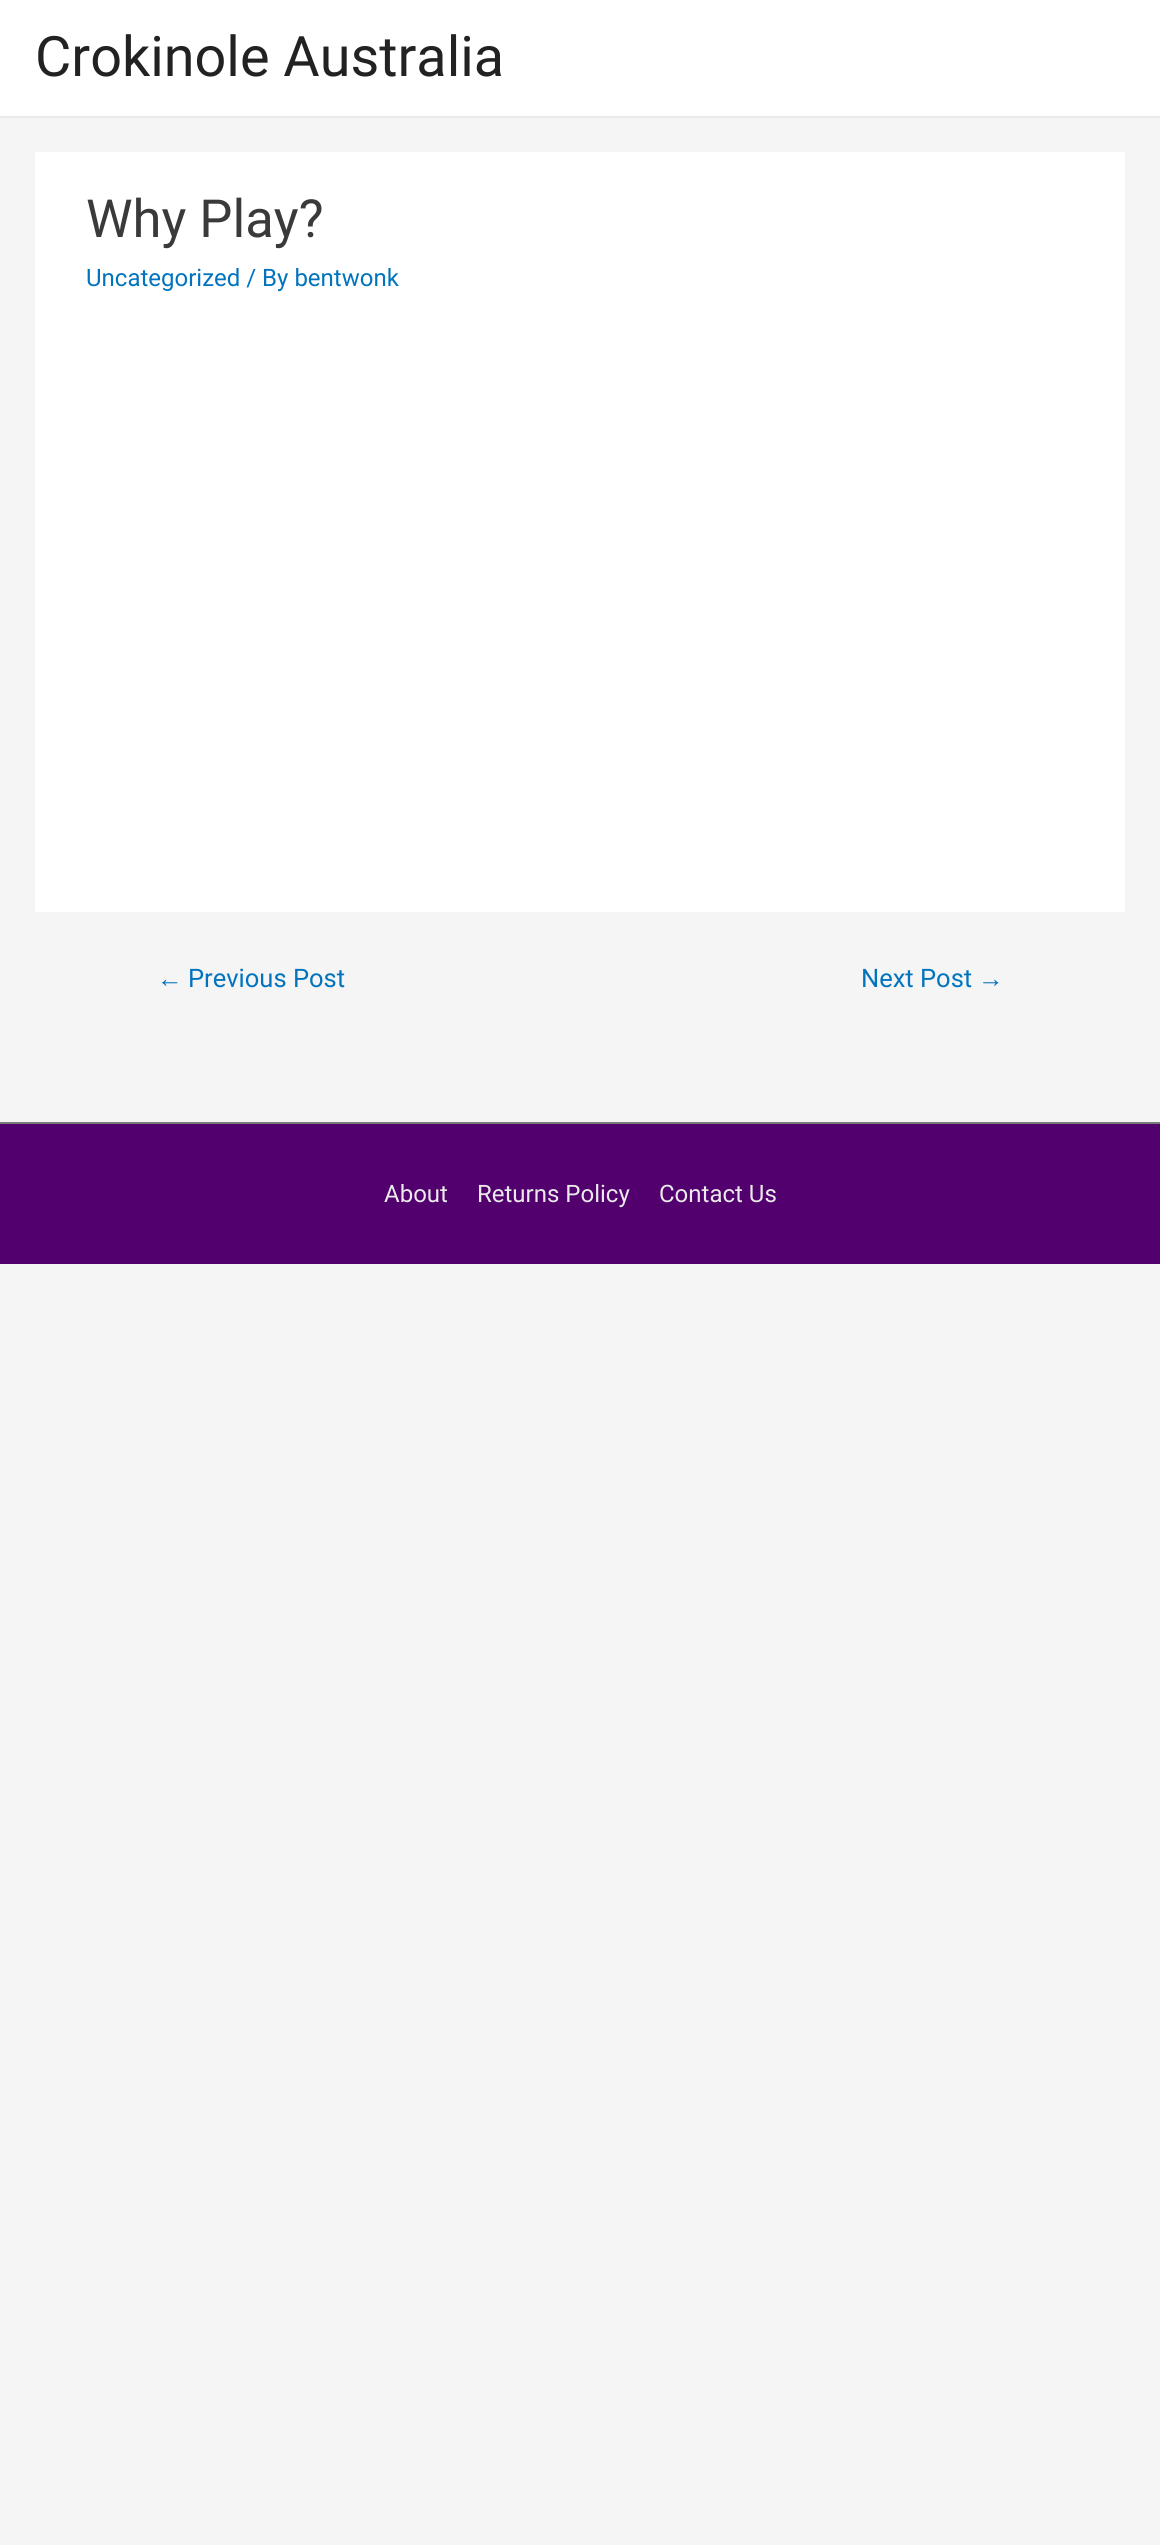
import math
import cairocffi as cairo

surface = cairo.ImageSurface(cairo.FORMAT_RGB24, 1160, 2545)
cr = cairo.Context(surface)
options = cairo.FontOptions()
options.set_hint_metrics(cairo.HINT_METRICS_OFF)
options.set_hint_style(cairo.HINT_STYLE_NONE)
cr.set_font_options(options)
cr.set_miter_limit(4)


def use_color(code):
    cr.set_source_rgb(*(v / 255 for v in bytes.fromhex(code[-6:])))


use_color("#f5f5f5")
cr.paint()
use_color("#ffffff")
cr.rectangle(0, 0, 1160, 116)
cr.fill()
use_color("#eaeaea")
cr.rectangle(0, 116, 1160, 2)
cr.fill()
cr.select_font_face("Roboto")
cr.set_font_size(55.75)
use_color("#222222")
cr.move_to(35, 76)
cr.show_text("Crokinole Australia")
use_color("#ffffff")
cr.rectangle(35, 152, 1090, 760)
cr.fill()
cr.set_font_size(52.5)
use_color("#3a3a3a")
cr.move_to(86, 237)
cr.show_text("Why Play?")
cr.set_font_size(24)
use_color("#0274be")
cr.move_to(86, 286)
cr.show_text("Uncategorized / By bentwonk")
cr.select_font_face("Liberation Sans")
cr.set_font_size(25.5)
cr.move_to(157, 987)
cr.show_text("←")
cr.select_font_face("Roboto")
cr.move_to(188, 987)
cr.show_text("Previous Post")
cr.move_to(861, 987)
cr.show_text("Next Post")
cr.select_font_face("Liberation Sans")
cr.move_to(978, 987)
cr.show_text("→")
use_color("#7a7a7a")
cr.rectangle(0, 1122, 1160, 2)
cr.fill()
use_color("#52006d")
cr.rectangle(0, 1124, 1160, 140)
cr.fill()
cr.select_font_face("Roboto")
cr.set_font_size(24)
use_color("#eaeaea")
cr.move_to(384, 1202)
cr.show_text("About")
cr.move_to(477, 1202)
cr.show_text("Returns Policy")
cr.move_to(659, 1202)
cr.show_text("Contact Us")
surface.write_to_png("result.png")
